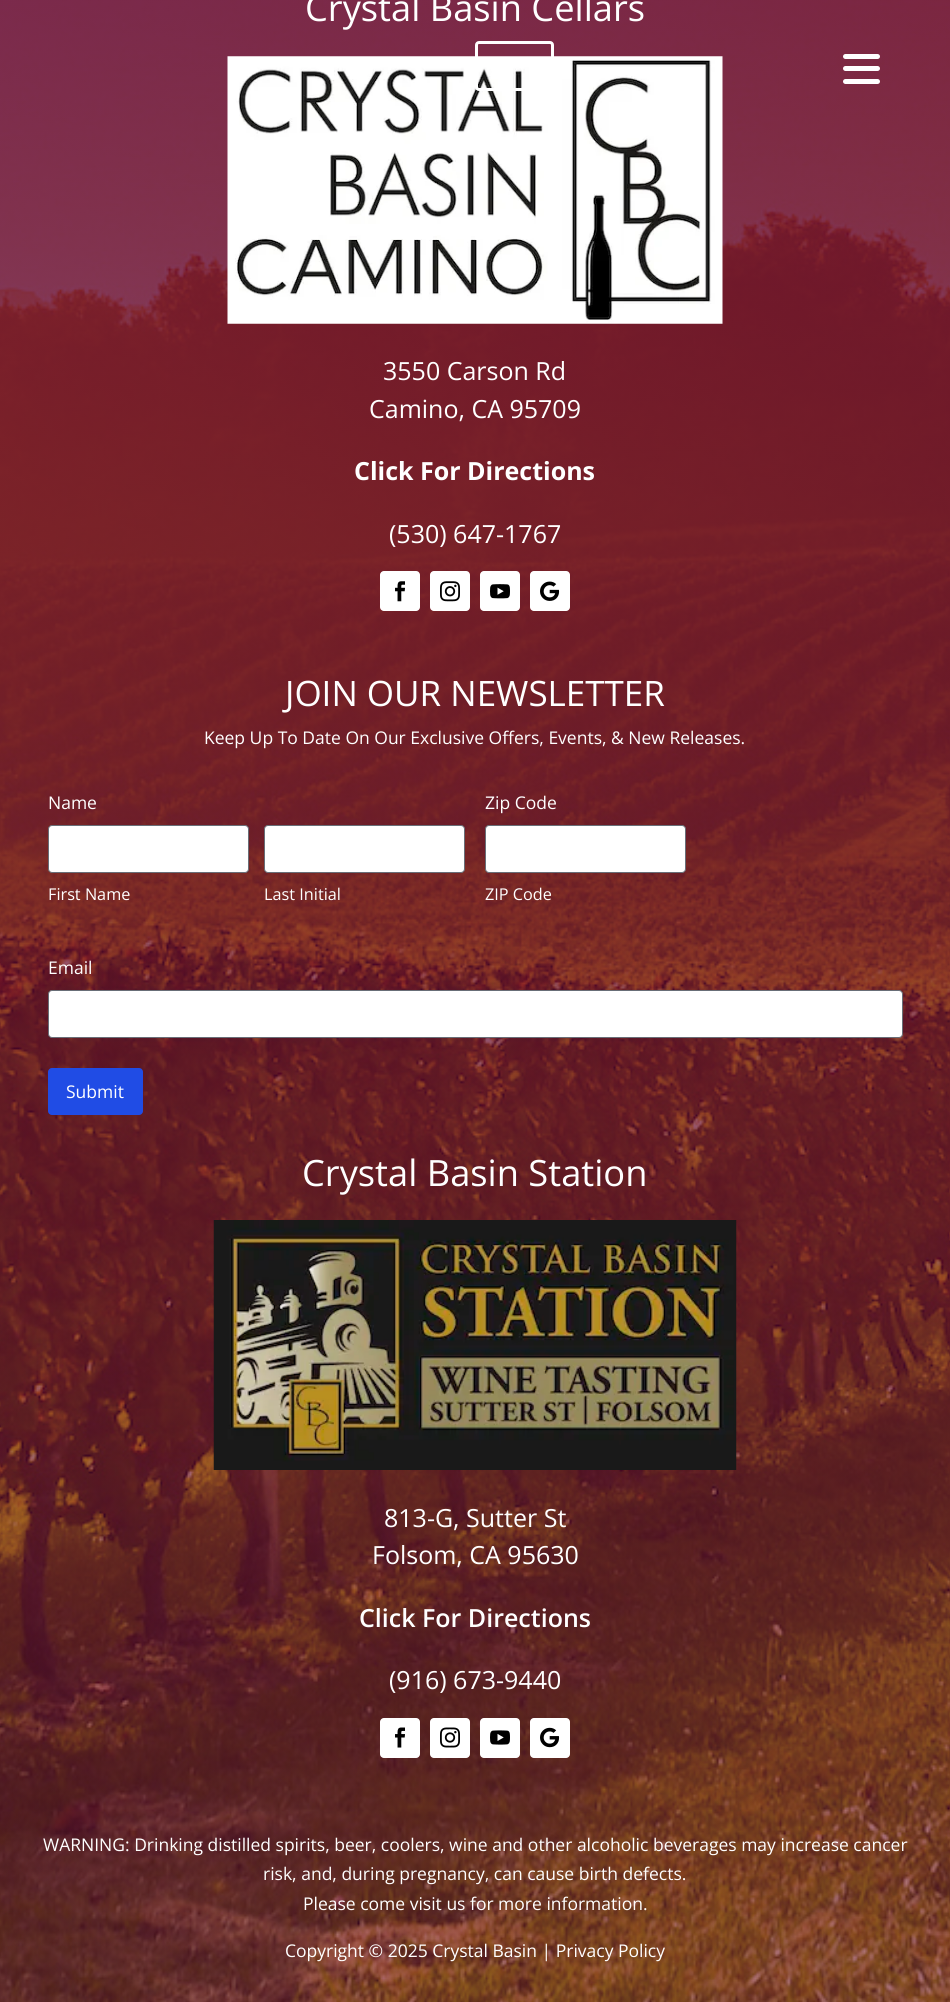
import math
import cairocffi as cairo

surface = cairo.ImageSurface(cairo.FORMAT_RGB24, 950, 2002)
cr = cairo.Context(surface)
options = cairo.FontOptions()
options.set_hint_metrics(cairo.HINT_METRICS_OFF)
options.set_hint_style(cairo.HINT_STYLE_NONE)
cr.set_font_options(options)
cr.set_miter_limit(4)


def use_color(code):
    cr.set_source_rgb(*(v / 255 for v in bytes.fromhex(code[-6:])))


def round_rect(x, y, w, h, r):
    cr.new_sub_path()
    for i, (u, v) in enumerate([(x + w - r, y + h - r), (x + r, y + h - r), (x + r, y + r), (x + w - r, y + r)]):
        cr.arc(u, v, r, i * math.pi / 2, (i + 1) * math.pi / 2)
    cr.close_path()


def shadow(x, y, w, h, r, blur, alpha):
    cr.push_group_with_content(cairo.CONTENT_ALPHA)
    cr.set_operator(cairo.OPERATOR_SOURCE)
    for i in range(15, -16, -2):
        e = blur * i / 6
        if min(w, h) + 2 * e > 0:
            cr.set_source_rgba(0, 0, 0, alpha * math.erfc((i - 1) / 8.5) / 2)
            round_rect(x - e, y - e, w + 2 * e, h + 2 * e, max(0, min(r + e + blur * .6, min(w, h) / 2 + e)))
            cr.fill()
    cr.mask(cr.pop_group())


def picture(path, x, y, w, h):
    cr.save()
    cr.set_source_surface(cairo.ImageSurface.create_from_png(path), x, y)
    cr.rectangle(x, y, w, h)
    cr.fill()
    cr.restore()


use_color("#ffffff")
cr.paint()
picture("img1.png", 0, 0, 950, 2002)
cr.select_font_face("Open Sans")
cr.set_font_size(36.25)
use_color("#ffffff")
cr.move_to(305, 21)
cr.show_text("Crystal Basin Cellars")
picture("img2.png", 227, 56, 496, 268)
cr.set_font_size(25)
cr.move_to(383, 380)
cr.show_text("3550 Carson Rd")
cr.move_to(369, 418)
cr.show_text("Camino, CA 95709")
cr.select_font_face("Open Sans", cairo.FONT_SLANT_NORMAL, cairo.FONT_WEIGHT_BOLD)
cr.move_to(354, 480)
cr.show_text("Click For Directions")
cr.select_font_face("Open Sans")
cr.move_to(389, 543)
cr.show_text("(530) 647-1767")
round_rect(380, 571, 40, 40, 4)
cr.fill()
picture("img3.png", 395, 581, 10, 21)
round_rect(430, 571, 40, 40, 4)
cr.fill()
picture("img4.png", 440, 581, 20, 21)
round_rect(480, 571, 40, 40, 4)
cr.fill()
picture("img5.png", 490, 584, 20, 15)
round_rect(530, 571, 40, 40, 4)
cr.fill()
picture("img6.png", 540, 581, 20, 20)
cr.set_font_size(35)
cr.move_to(285, 706)
cr.show_text("JOIN OUR NEWSLETTER")
cr.set_font_size(17.5)
cr.move_to(204, 744)
cr.show_text("Keep Up To Date On Our Exclusive Offers, Events, & New Releases.")
cr.move_to(48, 809)
cr.show_text("Name")
round_rect(48.5, 825.5, 200, 47, 3.5)
cr.fill_preserve()
use_color("#686e77")
cr.set_line_width(1)
cr.stroke()
cr.set_font_size(16.25)
use_color("#ffffff")
cr.move_to(48, 900)
cr.show_text("First Name")
round_rect(264.5, 825.5, 200, 47, 3.5)
cr.fill_preserve()
use_color("#686e77")
cr.stroke()
use_color("#ffffff")
cr.move_to(264, 900)
cr.show_text("Last Initial")
cr.set_font_size(17.5)
cr.move_to(485, 809)
cr.show_text("Zip Code")
round_rect(485.5, 825.5, 200, 47, 3.5)
cr.fill_preserve()
use_color("#686e77")
cr.stroke()
cr.set_font_size(16.25)
use_color("#ffffff")
cr.move_to(485, 900)
cr.show_text("ZIP Code")
cr.set_font_size(17.5)
cr.move_to(48, 974)
cr.show_text("Email")
use_color("#121961")
shadow(48, 991, 855, 48, 4, 2.5, 0.08)
use_color("#ffffff")
round_rect(48.5, 990.5, 854, 47, 3.5)
cr.fill_preserve()
use_color("#686e77")
cr.stroke()
use_color("#204ce5")
round_rect(48, 1068, 95, 47, 4)
cr.fill()
use_color("#ffffff")
cr.move_to(66, 1098)
cr.show_text("Submit")
cr.set_font_size(36.25)
cr.move_to(302, 1186)
cr.show_text("Crystal Basin Station")
picture("img7.png", 213, 1220, 524, 250)
cr.set_font_size(25)
cr.move_to(384, 1527)
cr.show_text("813-G, Sutter St")
cr.move_to(372, 1564)
cr.show_text("Folsom, CA 95630")
cr.select_font_face("Open Sans SemiBold")
cr.move_to(359, 1627)
cr.show_text("Click For Directions")
cr.select_font_face("Open Sans")
cr.move_to(389, 1689)
cr.show_text("(916) 673-9440")
round_rect(380, 1718, 40, 40, 4)
cr.fill()
picture("img8.png", 395, 1727, 10, 21)
round_rect(430, 1718, 40, 40, 4)
cr.fill()
picture("img9.png", 440, 1727, 20, 21)
round_rect(480, 1718, 40, 40, 4)
cr.fill()
picture("img10.png", 490, 1730, 20, 15)
round_rect(530, 1718, 40, 40, 4)
cr.fill()
picture("img11.png", 540, 1727, 20, 21)
cr.set_font_size(17.5)
cr.move_to(43, 1851)
cr.show_text("WARNING: Drinking distilled spirits, beer, coolers, wine and other alcoholic beverages may increase cancer")
cr.move_to(263, 1880)
cr.show_text("risk, and, during pregnancy, can cause birth defects.")
cr.move_to(303, 1910)
cr.show_text("Please come visit us for more information.")
cr.move_to(285, 1957)
cr.show_text("Copyright © 2025 Crystal Basin | Privacy Policy")
round_rect(476.5, 42.5, 76, 47, 2.5)
cr.set_line_width(3)
cr.stroke()
round_rect(843, 54, 37, 5, 2.5)
cr.fill()
round_rect(843, 66, 37, 5, 2.5)
cr.fill()
round_rect(843, 79, 37, 5, 2.5)
cr.fill()
surface.write_to_png("result.png")
